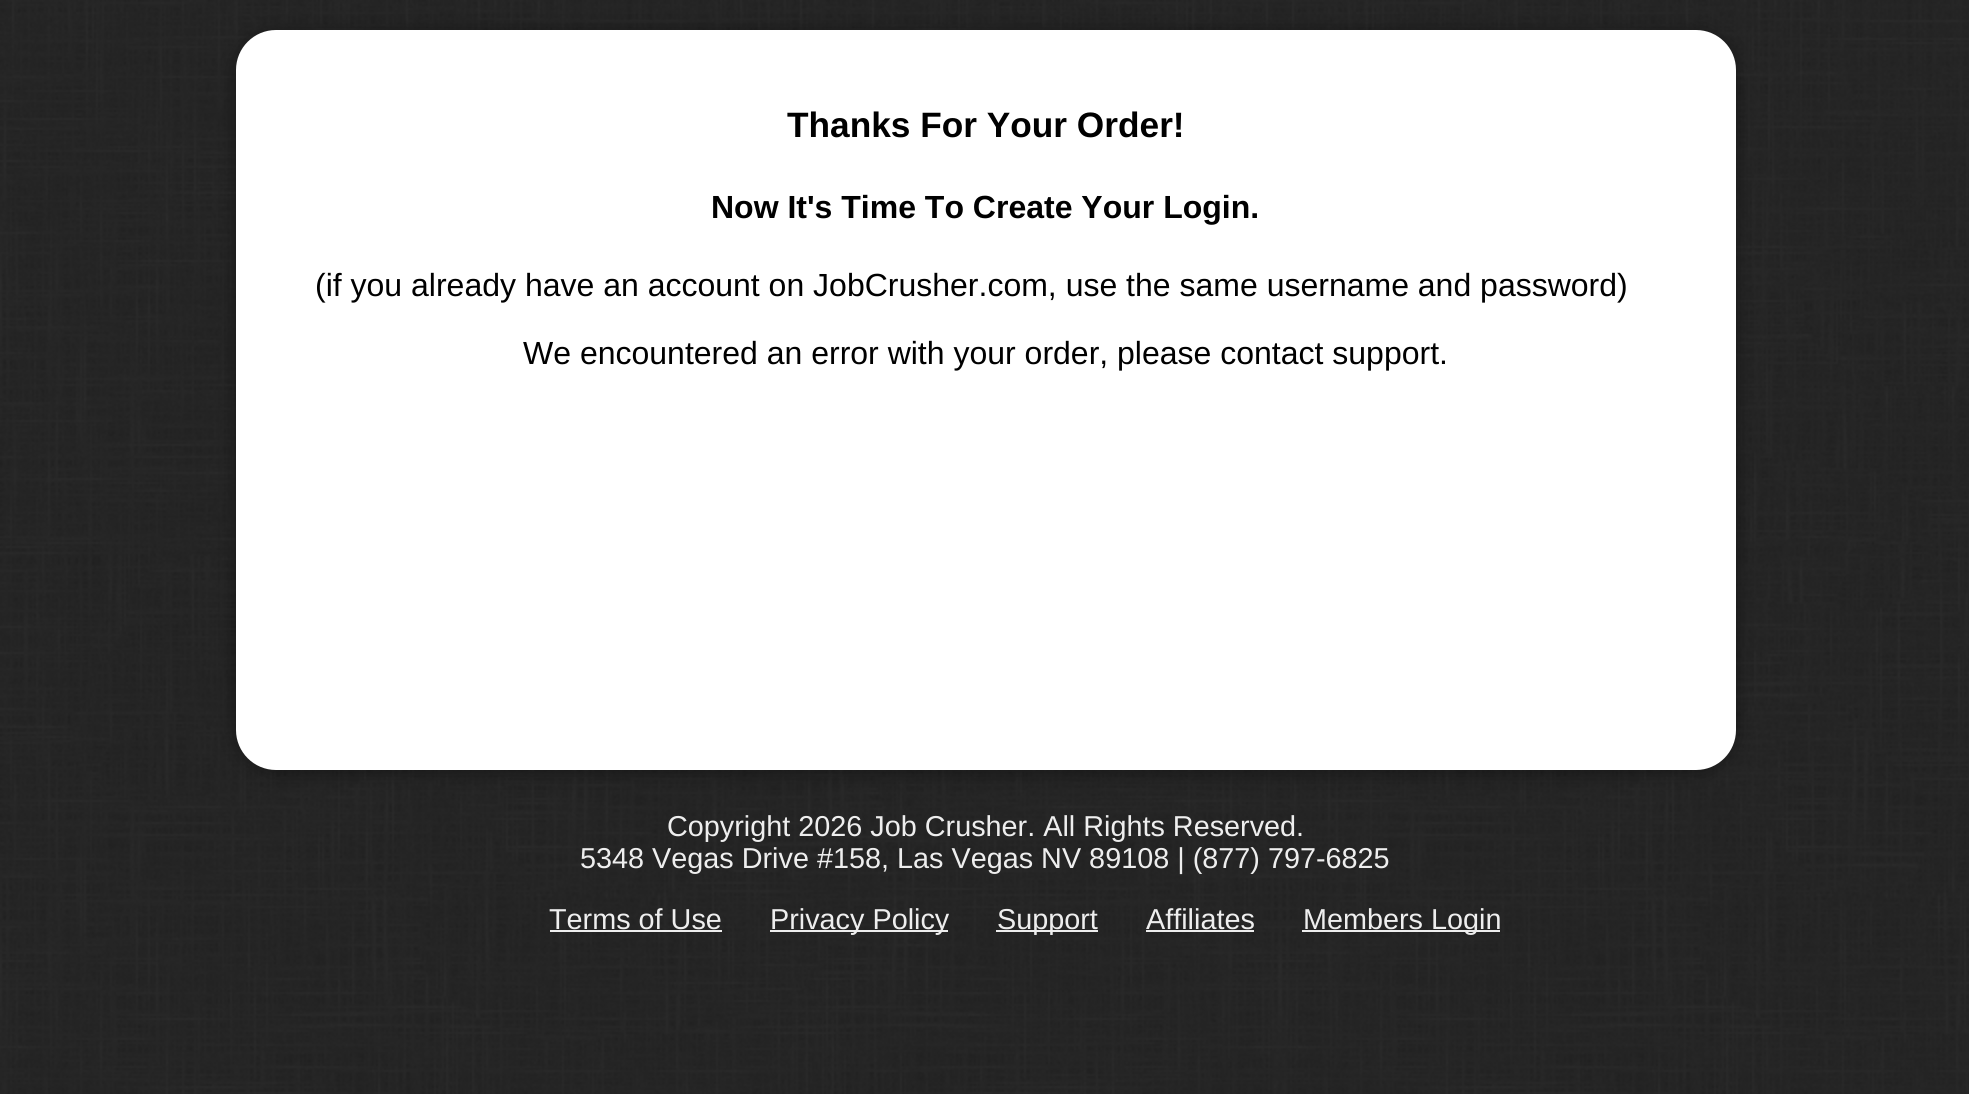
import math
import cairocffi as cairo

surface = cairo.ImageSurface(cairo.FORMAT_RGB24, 1969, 1094)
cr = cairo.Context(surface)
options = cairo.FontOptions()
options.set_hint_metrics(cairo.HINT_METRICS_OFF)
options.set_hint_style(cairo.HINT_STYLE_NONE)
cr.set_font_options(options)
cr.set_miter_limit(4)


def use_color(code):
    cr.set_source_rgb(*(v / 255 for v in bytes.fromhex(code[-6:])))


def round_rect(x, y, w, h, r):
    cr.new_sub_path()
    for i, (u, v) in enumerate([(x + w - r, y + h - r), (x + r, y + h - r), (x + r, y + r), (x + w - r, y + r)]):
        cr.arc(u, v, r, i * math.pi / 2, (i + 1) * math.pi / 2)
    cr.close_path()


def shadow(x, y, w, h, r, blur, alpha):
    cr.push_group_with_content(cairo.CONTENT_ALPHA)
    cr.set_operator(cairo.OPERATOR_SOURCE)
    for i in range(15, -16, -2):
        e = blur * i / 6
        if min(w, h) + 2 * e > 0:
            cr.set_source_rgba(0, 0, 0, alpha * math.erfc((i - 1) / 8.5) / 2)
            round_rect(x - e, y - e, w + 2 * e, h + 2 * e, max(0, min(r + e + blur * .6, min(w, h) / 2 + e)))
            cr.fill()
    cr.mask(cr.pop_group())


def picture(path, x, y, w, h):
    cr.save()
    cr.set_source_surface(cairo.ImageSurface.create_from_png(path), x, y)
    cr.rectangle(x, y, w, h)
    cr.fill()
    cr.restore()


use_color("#ffffff")
cr.paint()
picture("img1.png", 0, 0, 1969, 1094)
use_color("#000000")
shadow(236, 32, 1500, 740, 40, 10, 0.4)
use_color("#ffffff")
round_rect(236, 30, 1500, 740, 40)
cr.fill()
cr.select_font_face("Liberation Sans", cairo.FONT_SLANT_NORMAL, cairo.FONT_WEIGHT_BOLD)
cr.set_font_size(35.25)
use_color("#000000")
cr.move_to(787, 137)
cr.show_text("Thanks For Your Order!")
cr.set_font_size(32)
cr.move_to(711, 218)
cr.show_text("Now It's Time To Create Your Login.")
cr.select_font_face("Liberation Sans")
cr.move_to(315, 296)
cr.show_text("(if you already have an account on JobCrusher.com, use the same username and password)")
cr.move_to(523, 364)
cr.show_text("We encountered an error with your order, please contact support.")
cr.set_font_size(28.8)
use_color("#eeeeee")
cr.move_to(667, 836)
cr.show_text("Copyright 2026 Job Crusher. All Rights Reserved.")
cr.move_to(580, 868)
cr.show_text("5348 Vegas Drive #158, Las Vegas NV 89108 | (877) 797-6825")
cr.move_to(549, 929)
cr.show_text("Terms of Use")
cr.rectangle(550, 930, 172, 2)
cr.fill()
cr.rectangle(770, 930, 178, 2)
cr.fill()
cr.move_to(770, 929)
cr.show_text("Privacy Policy")
cr.rectangle(996, 930, 102, 2)
cr.fill()
cr.move_to(997, 929)
cr.show_text("Support")
cr.move_to(1146, 929)
cr.show_text("Affiliates")
cr.rectangle(1146, 930, 108, 2)
cr.fill()
cr.rectangle(1302, 930, 198, 2)
cr.fill()
cr.move_to(1303, 929)
cr.show_text("Members Login")
surface.write_to_png("result.png")
